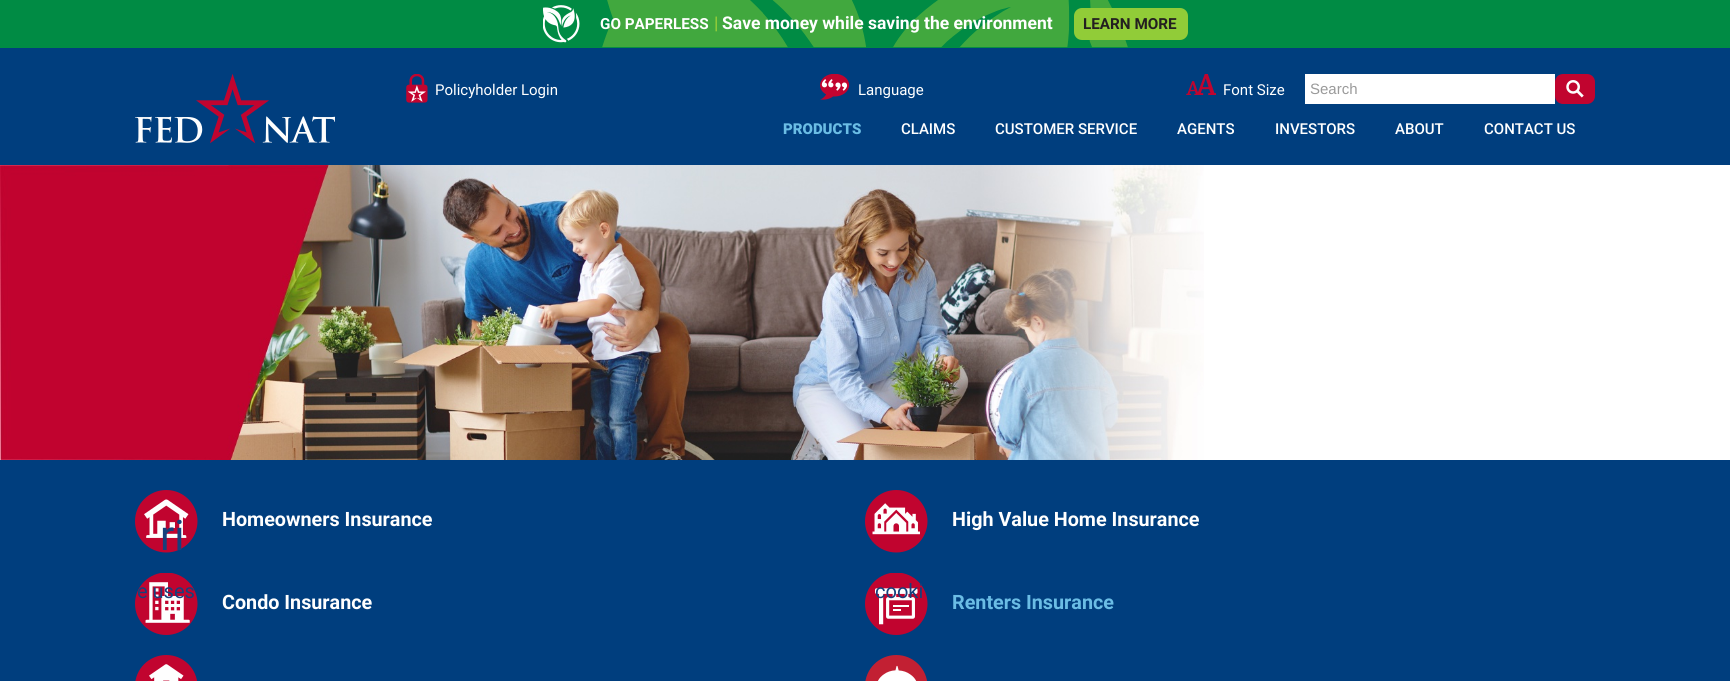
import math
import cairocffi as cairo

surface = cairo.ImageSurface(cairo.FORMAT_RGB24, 1730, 681)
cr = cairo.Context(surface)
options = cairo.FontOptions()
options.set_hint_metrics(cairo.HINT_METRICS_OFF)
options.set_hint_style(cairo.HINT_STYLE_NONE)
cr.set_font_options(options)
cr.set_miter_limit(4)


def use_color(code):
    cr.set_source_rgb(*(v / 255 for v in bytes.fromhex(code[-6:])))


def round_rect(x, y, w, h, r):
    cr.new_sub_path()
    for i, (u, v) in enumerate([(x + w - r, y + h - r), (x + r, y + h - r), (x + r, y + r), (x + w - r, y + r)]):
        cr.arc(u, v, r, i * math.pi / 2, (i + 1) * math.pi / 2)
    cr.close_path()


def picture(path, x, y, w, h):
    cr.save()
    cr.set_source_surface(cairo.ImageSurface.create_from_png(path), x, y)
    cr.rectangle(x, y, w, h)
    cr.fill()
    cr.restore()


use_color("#ffffff")
cr.paint()
use_color("#008b44")
cr.rectangle(0, 0, 1730, 48)
cr.fill()
picture("img1.png", 602, 0, 526, 48)
picture("img2.png", 543, 5, 37, 38)
cr.select_font_face("Roboto", cairo.FONT_SLANT_NORMAL, cairo.FONT_WEIGHT_BOLD)
cr.set_font_size(15.25)
use_color("#ffffff")
cr.move_to(600, 29)
cr.show_text("GO PAPERLESS")
cr.set_font_size(17.5)
use_color("#91cc38")
cr.move_to(714, 29)
cr.show_text("|")
use_color("#ffffff")
cr.move_to(722, 29)
cr.show_text("Save money while saving the environment")
use_color("#91cc38")
round_rect(1074, 8, 114, 32, 8)
cr.fill()
cr.set_font_size(15.25)
use_color("#231f20")
cr.move_to(1083, 29)
cr.show_text("LEARN MORE")
use_color("#003e7e")
cr.rectangle(0, 48, 1730, 117)
cr.fill()
picture("img3.png", 135, 74, 200, 70)
picture("img4.png", 406, 74, 22, 29)
cr.select_font_face("Roboto")
cr.set_font_size(15)
use_color("#ffffff")
cr.move_to(435, 95)
cr.show_text("Policyholder Login")
picture("img5.png", 820, 74, 30, 26)
cr.move_to(858, 95)
cr.show_text("Language")
picture("img6.png", 1186, 74, 30, 21)
cr.move_to(1223, 95)
cr.show_text("Font Size")
cr.rectangle(1305, 74, 250, 30)
cr.fill()
cr.select_font_face("Liberation Sans")
use_color("#9a9a9a")
cr.move_to(1310, 94)
cr.show_text("Search")
use_color("#c1042f")
round_rect(1555, 74, 40, 30, 8)
cr.fill()
picture("img7.png", 1566, 80, 18, 18)
cr.select_font_face("Roboto Black")
use_color("#6bbde5")
cr.move_to(783, 134)
cr.show_text("PRODUCTS")
cr.select_font_face("Roboto Medium")
use_color("#ffffff")
cr.move_to(901, 134)
cr.show_text("CLAIMS")
cr.move_to(995, 134)
cr.show_text("CUSTOMER SERVICE")
cr.move_to(1177, 134)
cr.show_text("AGENTS")
cr.move_to(1275, 134)
cr.show_text("INVESTORS")
cr.move_to(1395, 134)
cr.show_text("ABOUT")
cr.move_to(1484, 134)
cr.show_text("CONTACT US")
picture("img8.png", 0, 165, 1204, 295)
use_color("#003e7e")
cr.rectangle(0, 460, 1730, 221)
cr.fill()
picture("img9.png", 135, 490, 63, 63)
cr.select_font_face("Roboto", cairo.FONT_SLANT_NORMAL, cairo.FONT_WEIGHT_BOLD)
cr.set_font_size(19.75)
use_color("#ffffff")
cr.move_to(222, 526)
cr.show_text("Homeowners Insurance")
picture("img10.png", 865, 490, 63, 63)
cr.move_to(952, 526)
cr.show_text("High Value Home Insurance")
picture("img11.png", 135, 573, 63, 62)
cr.move_to(222, 609)
cr.show_text("Condo Insurance")
picture("img12.png", 865, 573, 63, 62)
use_color("#6bbde5")
cr.move_to(952, 609)
cr.show_text("Renters Insurance")
picture("img13.png", 135, 655, 62, 26)
picture("img14.png", 865, 655, 62, 26)
cr.select_font_face("Roboto")
cr.set_font_size(42)
use_color("#16407c")
cr.move_to(160, 550)
cr.show_text("ri")
cr.set_font_size(20)
cr.move_to(137, 598)
cr.show_text("e uses")
cr.move_to(875, 598)
cr.show_text("cooki")
surface.write_to_png("result.png")
